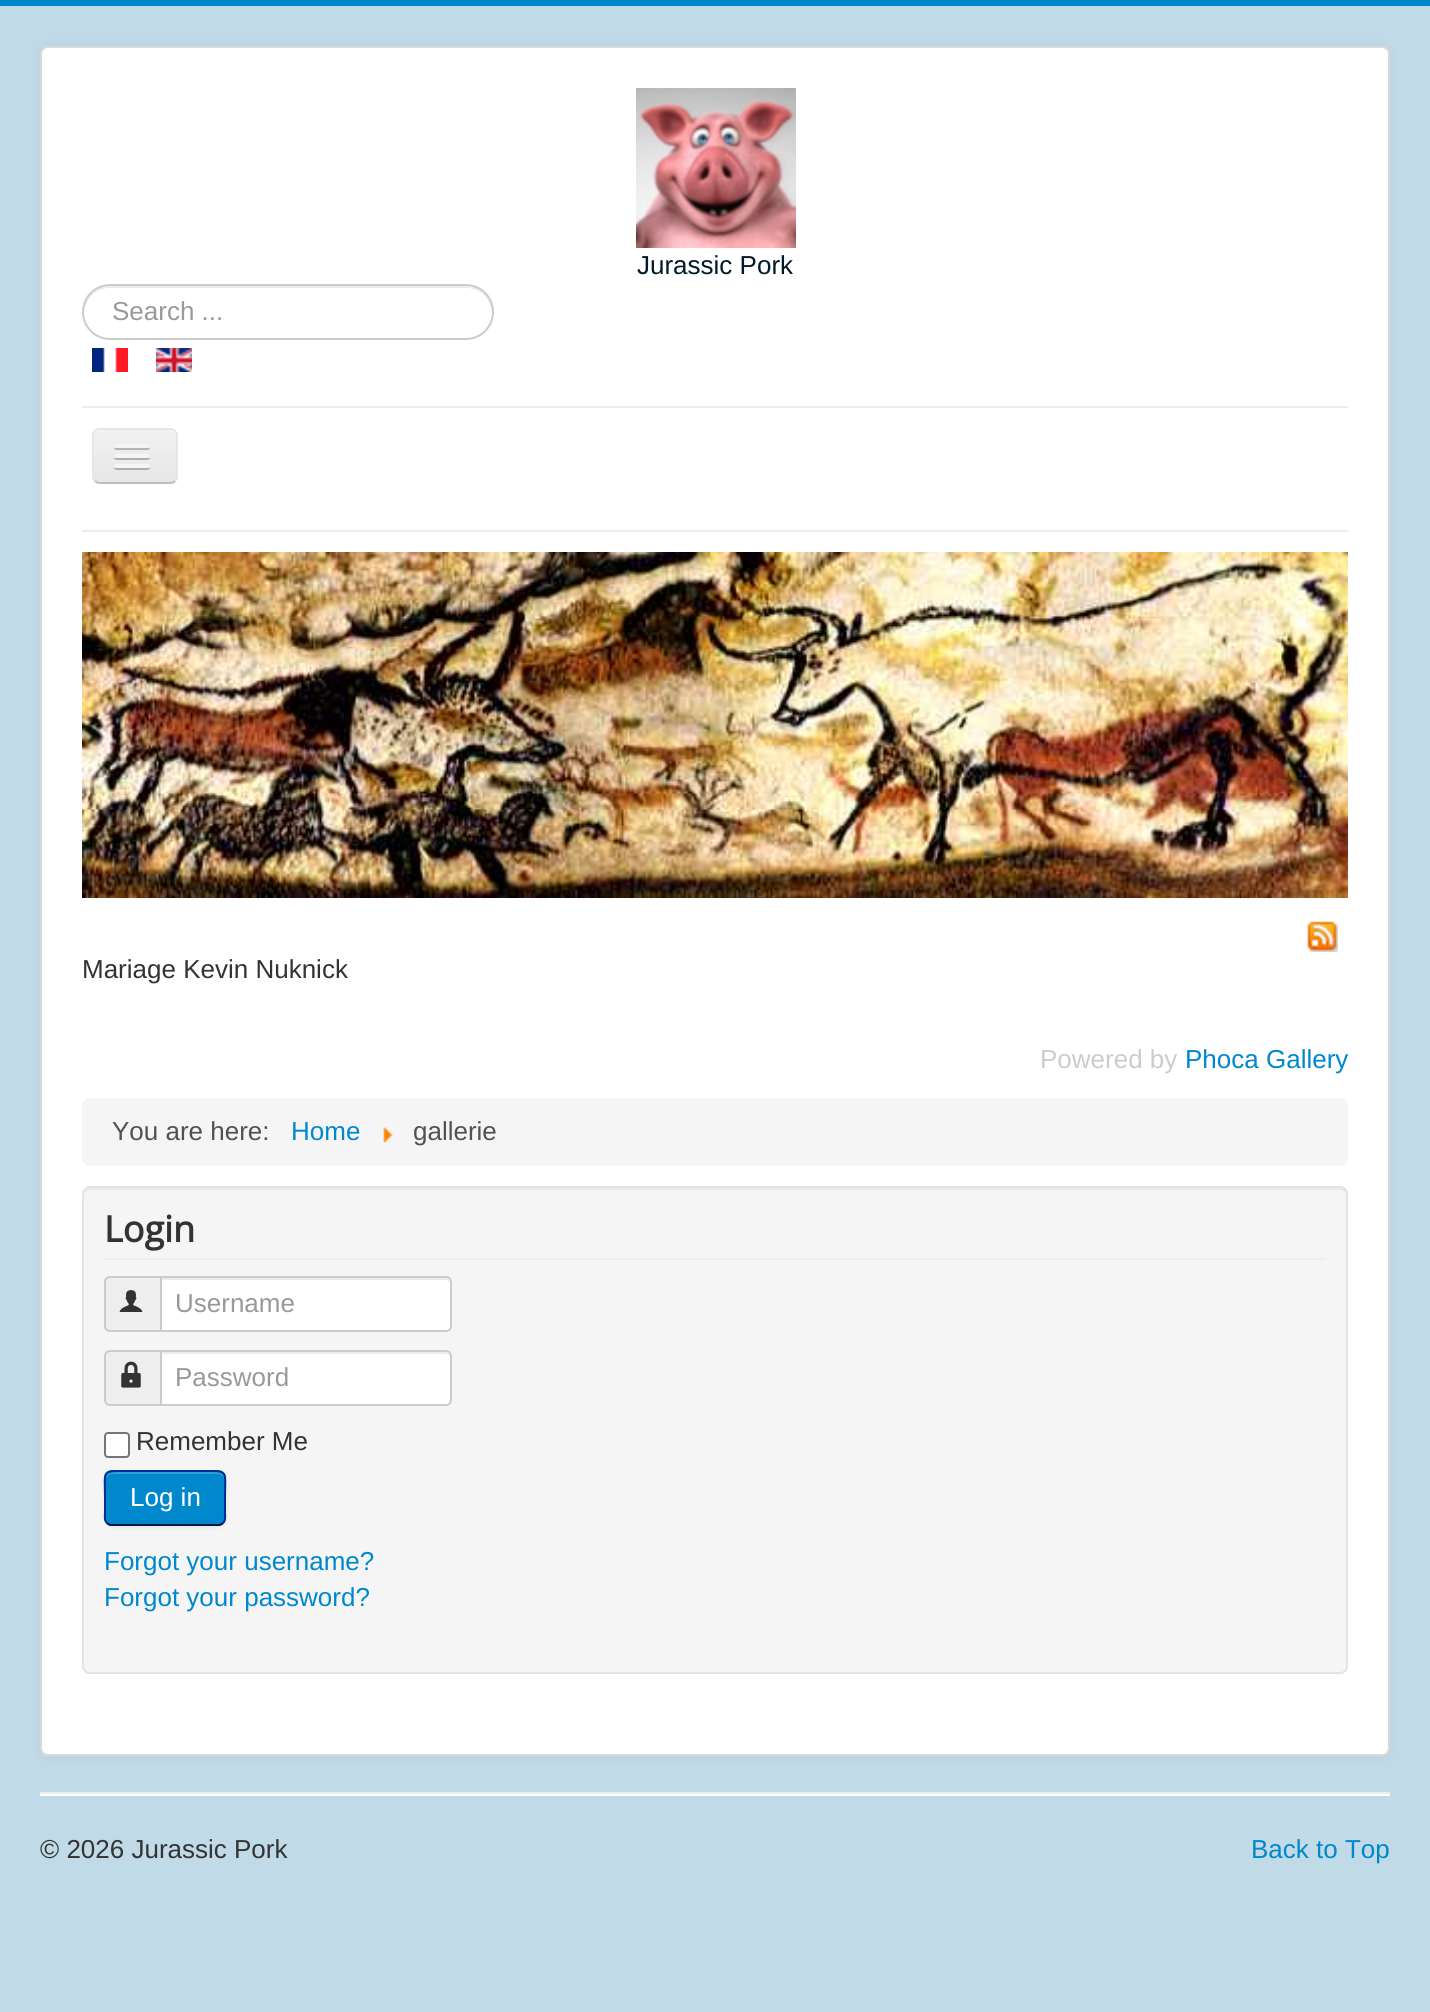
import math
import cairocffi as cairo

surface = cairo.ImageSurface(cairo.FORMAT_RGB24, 1430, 2012)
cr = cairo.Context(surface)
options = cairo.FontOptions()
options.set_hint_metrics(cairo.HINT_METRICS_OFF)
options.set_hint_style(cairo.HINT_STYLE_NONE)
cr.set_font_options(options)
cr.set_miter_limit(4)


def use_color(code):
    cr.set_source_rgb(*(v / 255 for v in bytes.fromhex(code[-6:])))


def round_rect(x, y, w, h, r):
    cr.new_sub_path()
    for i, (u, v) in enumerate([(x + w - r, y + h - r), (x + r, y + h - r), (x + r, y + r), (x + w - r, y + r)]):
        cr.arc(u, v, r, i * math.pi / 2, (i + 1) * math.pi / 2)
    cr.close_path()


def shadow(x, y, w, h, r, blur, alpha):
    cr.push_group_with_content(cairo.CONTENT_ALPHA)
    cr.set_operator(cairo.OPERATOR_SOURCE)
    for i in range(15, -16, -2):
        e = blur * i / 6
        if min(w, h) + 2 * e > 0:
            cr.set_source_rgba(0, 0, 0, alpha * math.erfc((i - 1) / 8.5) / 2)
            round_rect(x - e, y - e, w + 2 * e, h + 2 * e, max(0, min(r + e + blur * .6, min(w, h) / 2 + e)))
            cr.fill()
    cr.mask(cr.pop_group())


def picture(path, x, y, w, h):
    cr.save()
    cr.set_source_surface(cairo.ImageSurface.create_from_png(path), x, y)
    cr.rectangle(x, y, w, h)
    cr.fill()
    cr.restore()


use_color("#c1dae8")
cr.paint()
use_color("#0088cc")
cr.rectangle(0, 0, 1430, 6)
cr.fill()
use_color("#000000")
shadow(40, 46, 1350, 1710, 8, 6, 0.05)
use_color("#ffffff")
round_rect(40, 46, 1350, 1710, 8)
cr.fill()
round_rect(41, 47, 1348, 1708, 7)
cr.set_source_rgba(0, 0, 0, 0.15)
cr.stroke()
picture("img1.png", 636, 88, 160, 160)
cr.select_font_face("Liberation Sans")
cr.set_font_size(26)
use_color("#001a27")
cr.move_to(637, 274)
cr.show_text("Jurassic Pork")
use_color("#ececec")
cr.new_path()
cr.move_to(110, 288)
cr.line_to(466, 288)
cr.curve_to(480, 288, 491, 299, 492, 313)
cr.curve_to(493, 298, 481, 286, 466, 286)
cr.line_to(110, 286)
cr.curve_to(95, 286, 83, 298, 84, 313)
cr.curve_to(85, 299, 96, 288, 110, 288)
cr.close_path()
cr.fill()
round_rect(83, 285, 410, 54, 27)
use_color("#cccccc")
cr.stroke()
use_color("#999999")
cr.move_to(112, 320)
cr.show_text("Search ...")
picture("img2.png", 92, 348, 36, 24)
picture("img3.png", 156, 348, 36, 24)
use_color("#ececec")
cr.rectangle(82, 406, 1266, 2)
cr.fill()
cr.rectangle(82, 530, 1266, 2)
cr.fill()
cr.save()
round_rect(92, 428, 86, 56, 8)
cr.clip()
gradient = cairo.LinearGradient(135, 430, 135, 482)
gradient.add_color_stop_rgba(0, 0.949, 0.949, 0.949, 1)
gradient.add_color_stop_rgba(1, 0.902, 0.902, 0.902, 1)
cr.set_source(gradient)
cr.rectangle(92, 430, 86, 52)
cr.fill()
cr.restore()
use_color("#f3f3f3")
cr.new_path()
cr.move_to(100, 432)
cr.line_to(170, 432)
cr.curve_to(173, 432, 176, 435, 176, 438)
cr.curve_to(176, 427, 167, 430, 158, 430)
cr.line_to(112, 430)
cr.curve_to(103, 430, 94, 427, 94, 438)
cr.curve_to(94, 435, 97, 432, 100, 432)
cr.close_path()
cr.fill()
cr.new_path()
cr.move_to(175, 481)
cr.curve_to(173.5, 482.5, 172, 483, 170, 483)
cr.line_to(100, 483)
cr.curve_to(98, 483, 96.5, 482.5, 95, 481)
use_color("#bfbfbf")
cr.stroke()
cr.new_path()
cr.move_to(95, 481)
cr.curve_to(93.5, 479.5, 93, 478, 93, 476)
cr.line_to(93, 436)
cr.curve_to(93, 434, 93.5, 432.5, 95, 431)
cr.curve_to(96.5, 429.5, 98, 429, 100, 429)
cr.line_to(170, 429)
cr.curve_to(172, 429, 173.5, 429.5, 175, 431)
cr.curve_to(176.5, 432.5, 177, 434, 177, 436)
cr.line_to(177, 476)
cr.curve_to(177, 478, 176.5, 479.5, 175, 481)
use_color("#e6e6e6")
cr.stroke()
use_color("#b3b3b3")
cr.new_path()
cr.move_to(114.5, 447)
cr.curve_to(112, 451, 121, 450, 121.5, 450)
cr.line_to(142.5, 450)
cr.curve_to(143, 450, 152, 451, 149.5, 447)
cr.curve_to(149.5, 447.5, 148.5, 448, 148, 448)
cr.line_to(116, 448)
cr.curve_to(115.5, 448, 114.5, 447.5, 114.5, 447)
cr.close_path()
cr.fill()
use_color("#f5f5f5")
round_rect(114, 444, 36, 4, 2)
cr.fill()
use_color("#b0b0b0")
cr.new_path()
cr.move_to(114.5, 457)
cr.curve_to(112, 461, 121, 460, 121.5, 460)
cr.line_to(142.5, 460)
cr.curve_to(143, 460, 152, 461, 149.5, 457)
cr.curve_to(149.5, 457.5, 148.5, 458, 148, 458)
cr.line_to(116, 458)
cr.curve_to(115.5, 458, 114.5, 457.5, 114.5, 457)
cr.close_path()
cr.fill()
use_color("#f5f5f5")
round_rect(114, 454, 36, 4, 2)
cr.fill()
use_color("#afafaf")
cr.new_path()
cr.move_to(114.5, 467)
cr.curve_to(112, 471, 121, 470, 121.5, 470)
cr.line_to(142.5, 470)
cr.curve_to(143, 470, 152, 471, 149.5, 467)
cr.curve_to(149.5, 467.5, 148.5, 468, 148, 468)
cr.line_to(116, 468)
cr.curve_to(115.5, 468, 114.5, 467.5, 114.5, 467)
cr.close_path()
cr.fill()
use_color("#f5f5f5")
round_rect(114, 464, 36, 4, 2)
cr.fill()
picture("img4.png", 82, 552, 1266, 346)
picture("img5.png", 1307, 921, 31, 31)
use_color("#333333")
cr.move_to(82, 978)
cr.show_text("Mariage Kevin Nuknick")
use_color("#cccccc")
cr.move_to(1040, 1068)
cr.show_text("Powered by")
use_color("#0088cc")
cr.move_to(1185, 1068)
cr.show_text("Phoca Gallery")
use_color("#f5f5f5")
round_rect(82, 1098, 1266, 68, 8)
cr.fill()
use_color("#515151")
cr.move_to(112, 1140)
cr.show_text("You are here:")
use_color("#0088cc")
cr.move_to(291, 1140)
cr.show_text("Home")
picture("img6.png", 383, 1127, 10, 15)
use_color("#515151")
cr.move_to(413, 1140)
cr.show_text("gallerie")
use_color("#f5f5f5")
round_rect(82, 1186, 1266, 488, 8)
cr.fill()
use_color("#e9e9e9")
cr.new_path()
cr.move_to(90, 1190)
cr.line_to(1340, 1190)
cr.curve_to(1343, 1190, 1346, 1193, 1346, 1196)
cr.line_to(1346, 1194)
cr.curve_to(1346, 1191, 1343, 1188, 1340, 1188)
cr.line_to(90, 1188)
cr.curve_to(87, 1188, 84, 1191, 84, 1194)
cr.line_to(84, 1196)
cr.curve_to(84, 1193, 87, 1190, 90, 1190)
cr.close_path()
cr.fill()
round_rect(83, 1187, 1264, 486, 7)
use_color("#e3e3e3")
cr.stroke()
use_color("#eeeeee")
cr.rectangle(104, 1258, 1222, 2)
cr.fill()
cr.select_font_face("Open Sans", cairo.FONT_SLANT_NORMAL, cairo.FONT_WEIGHT_BOLD)
cr.set_font_size(36)
use_color("#333333")
cr.move_to(104, 1242)
cr.show_text("Login")
use_color("#eeeeee")
cr.new_path()
cr.move_to(110, 1277)
cr.line_to(161, 1277)
cr.line_to(161, 1331)
cr.line_to(110, 1331)
cr.curve_to(107, 1331, 105, 1329, 105, 1326)
cr.line_to(105, 1282)
cr.curve_to(105, 1279, 107, 1277, 110, 1277)
cr.close_path()
cr.fill_preserve()
use_color("#cccccc")
cr.stroke()
picture("img7.png", 119, 1290, 24, 22)
use_color("#ffffff")
cr.new_path()
cr.move_to(160, 1276)
cr.line_to(446, 1276)
cr.curve_to(449.5, 1276, 452, 1278.5, 452, 1282)
cr.line_to(452, 1326)
cr.curve_to(452, 1329.5, 449.5, 1332, 446, 1332)
cr.line_to(160, 1332)
cr.close_path()
cr.fill()
use_color("#ececec")
cr.new_path()
cr.move_to(162, 1280)
cr.line_to(446, 1280)
cr.curve_to(448, 1280, 450, 1282, 450, 1284)
cr.curve_to(450, 1281, 450, 1278, 446, 1278)
cr.line_to(162, 1278)
cr.close_path()
cr.fill()
cr.new_path()
cr.move_to(161, 1277)
cr.line_to(446, 1277)
cr.curve_to(449, 1277, 451, 1279, 451, 1282)
cr.line_to(451, 1326)
cr.curve_to(451, 1329, 449, 1331, 446, 1331)
cr.line_to(161, 1331)
cr.close_path()
use_color("#cccccc")
cr.stroke()
cr.select_font_face("Liberation Sans")
cr.set_font_size(26)
use_color("#999999")
cr.move_to(175, 1312)
cr.show_text("Username")
use_color("#eeeeee")
cr.new_path()
cr.move_to(110, 1351)
cr.line_to(161, 1351)
cr.line_to(161, 1405)
cr.line_to(110, 1405)
cr.curve_to(107, 1405, 105, 1403, 105, 1400)
cr.line_to(105, 1356)
cr.curve_to(105, 1353, 107, 1351, 110, 1351)
cr.close_path()
cr.fill_preserve()
use_color("#cccccc")
cr.stroke()
picture("img8.png", 121, 1361, 20, 27)
use_color("#ffffff")
cr.new_path()
cr.move_to(160, 1350)
cr.line_to(446, 1350)
cr.curve_to(449.5, 1350, 452, 1352.5, 452, 1356)
cr.line_to(452, 1400)
cr.curve_to(452, 1403.5, 449.5, 1406, 446, 1406)
cr.line_to(160, 1406)
cr.close_path()
cr.fill()
use_color("#ececec")
cr.new_path()
cr.move_to(162, 1354)
cr.line_to(446, 1354)
cr.curve_to(448, 1354, 450, 1356, 450, 1358)
cr.curve_to(450, 1355, 450, 1352, 446, 1352)
cr.line_to(162, 1352)
cr.close_path()
cr.fill()
cr.new_path()
cr.move_to(161, 1351)
cr.line_to(446, 1351)
cr.curve_to(449, 1351, 451, 1353, 451, 1356)
cr.line_to(451, 1400)
cr.curve_to(451, 1403, 449, 1405, 446, 1405)
cr.line_to(161, 1405)
cr.close_path()
use_color("#cccccc")
cr.stroke()
use_color("#999999")
cr.move_to(175, 1386)
cr.show_text("Password")
use_color("#ffffff")
round_rect(105, 1433, 24, 24, 3)
cr.fill_preserve()
use_color("#767676")
cr.stroke()
use_color("#333333")
cr.move_to(136, 1450)
cr.show_text("Remember Me")
use_color("#000000")
shadow(104, 1472, 122, 56, 8, 2, 0.05)
use_color("#0088cc")
round_rect(104, 1470, 122, 56, 8)
cr.fill()
use_color("#33a0d6")
cr.new_path()
cr.move_to(112, 1474)
cr.line_to(218, 1474)
cr.curve_to(221, 1474, 224, 1477, 224, 1480)
cr.line_to(224, 1478)
cr.curve_to(224, 1475, 221, 1472, 218, 1472)
cr.line_to(112, 1472)
cr.curve_to(109, 1472, 106, 1475, 106, 1478)
cr.line_to(106, 1480)
cr.curve_to(106, 1477, 109, 1474, 112, 1474)
cr.close_path()
cr.fill()
cr.new_path()
cr.move_to(223, 1523)
cr.curve_to(221.5, 1524.5, 220, 1525, 218, 1525)
cr.line_to(112, 1525)
cr.curve_to(110, 1525, 108.5, 1524.5, 107, 1523)
use_color("#001641")
cr.stroke()
cr.new_path()
cr.move_to(107, 1523)
cr.curve_to(104, 1520, 105, 1515, 105, 1511.5)
cr.line_to(105, 1498)
cr.curve_to(105, 1469, 100.5, 1471, 129.5, 1471)
cr.line_to(200.5, 1471)
cr.curve_to(229.5, 1471, 225, 1469, 225, 1498)
cr.line_to(225, 1511.5)
cr.curve_to(225, 1515, 226, 1520, 223, 1523)
use_color("#002f8d")
cr.stroke()
use_color("#ffffff")
cr.move_to(130, 1506)
cr.show_text("Log in")
use_color("#0088cc")
cr.move_to(104, 1570)
cr.show_text("Forgot your username?")
cr.move_to(104, 1606)
cr.show_text("Forgot your password?")
use_color("#eeeeee")
cr.rectangle(40, 1792, 1350, 2)
cr.fill()
use_color("#ffffff")
cr.rectangle(40, 1794, 1350, 2)
cr.fill()
use_color("#333333")
cr.move_to(40, 1858)
cr.show_text("© 2026 Jurassic Pork")
use_color("#0088cc")
cr.move_to(1251, 1858)
cr.show_text("Back to Top")
surface.write_to_png("result.png")
